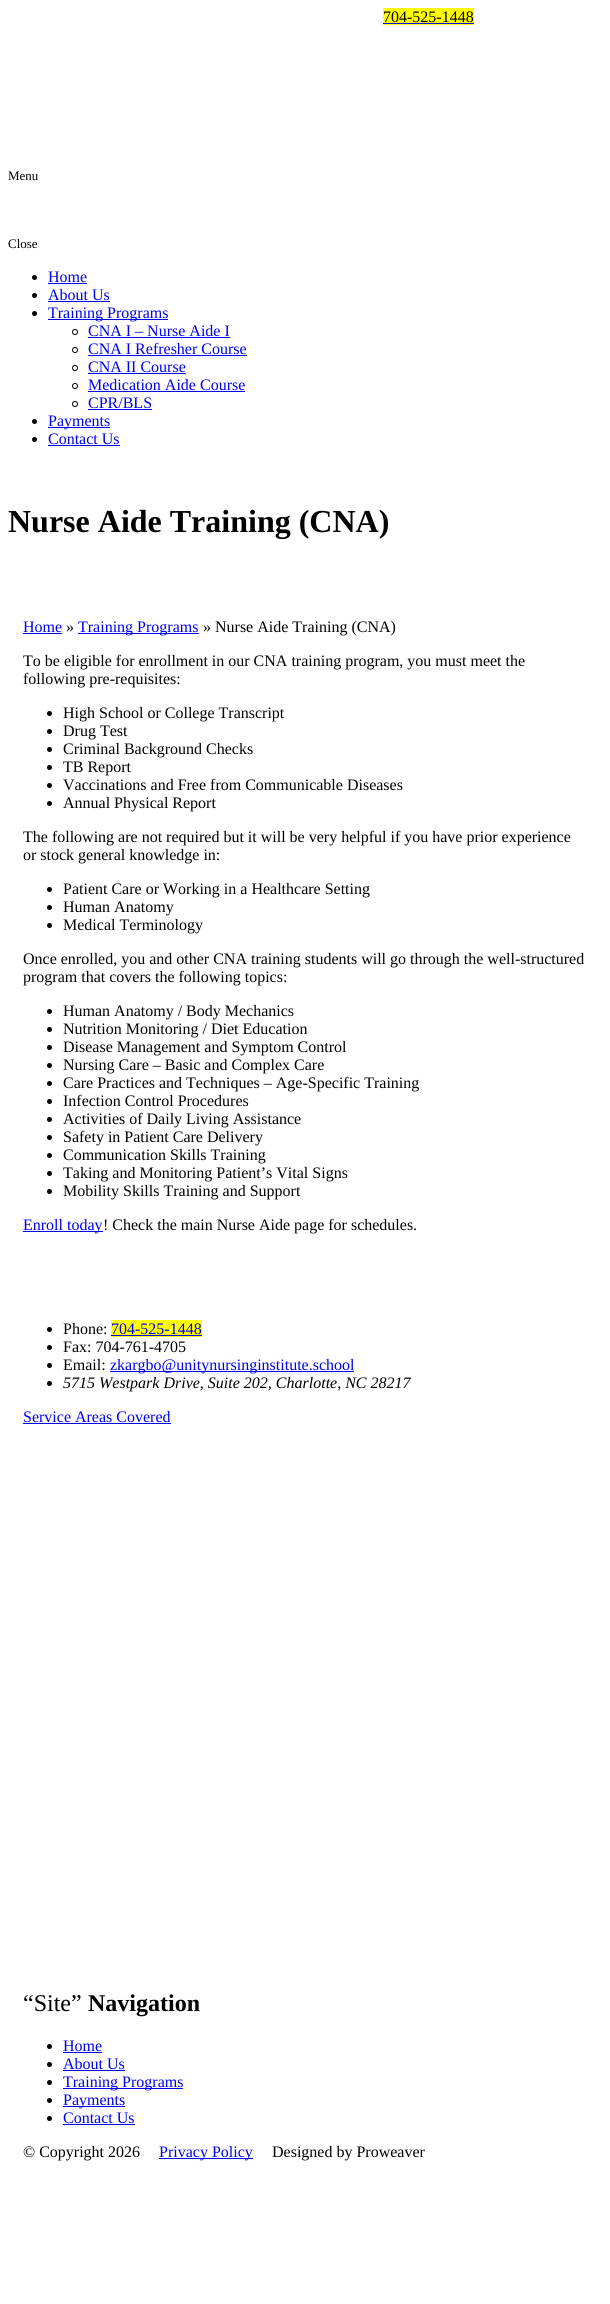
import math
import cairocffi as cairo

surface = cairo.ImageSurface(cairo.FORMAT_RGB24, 610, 2304)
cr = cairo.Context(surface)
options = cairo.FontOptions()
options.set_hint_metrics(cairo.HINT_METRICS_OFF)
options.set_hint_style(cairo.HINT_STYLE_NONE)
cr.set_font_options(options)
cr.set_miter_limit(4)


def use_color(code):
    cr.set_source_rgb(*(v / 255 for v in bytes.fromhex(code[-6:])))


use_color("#ffffff")
cr.paint()
use_color("#ffff00")
cr.rectangle(383, 8, 91, 17)
cr.fill()
cr.select_font_face("Liberation Serif")
cr.set_font_size(16)
use_color("#000000")
cr.move_to(383, 22)
cr.show_text("704-525-1448")
use_color("#0000ee")
cr.rectangle(383, 23, 91, 1)
cr.fill()
cr.set_font_size(13)
use_color("#000000")
cr.move_to(8, 180)
cr.show_text("Menu")
cr.move_to(8, 248)
cr.show_text("Close")
cr.new_path()
cr.arc(34.5, 277.5, 2.5, 0, 2 * math.pi)
cr.fill()
cr.set_font_size(16)
use_color("#0000ee")
cr.move_to(48, 282)
cr.show_text("Home")
cr.rectangle(48, 283, 39, 1)
cr.fill()
use_color("#000000")
cr.arc(34.5, 295.5, 2.5, 0, 2 * math.pi)
cr.fill()
use_color("#0000ee")
cr.move_to(48, 300)
cr.show_text("About Us")
cr.rectangle(48, 301, 62, 1)
cr.fill()
use_color("#000000")
cr.arc(34.5, 313.5, 2.5, 0, 2 * math.pi)
cr.fill()
use_color("#0000ee")
cr.rectangle(48, 319, 120, 1)
cr.fill()
cr.move_to(48, 318)
cr.show_text("Training Programs")
cr.new_path()
cr.arc(75, 332, 2.5, 0, 2 * math.pi)
use_color("#000000")
cr.set_line_width(1)
cr.stroke()
use_color("#0000ee")
cr.move_to(88, 336)
cr.show_text("CNA I – Nurse Aide I")
cr.rectangle(88, 337, 142, 1)
cr.fill()
cr.arc(75, 350, 2.5, 0, 2 * math.pi)
use_color("#000000")
cr.stroke()
use_color("#0000ee")
cr.move_to(88, 354)
cr.show_text("CNA I Refresher Course")
cr.rectangle(88, 355, 159, 1)
cr.fill()
cr.arc(75, 368, 2.5, 0, 2 * math.pi)
use_color("#000000")
cr.stroke()
use_color("#0000ee")
cr.move_to(88, 372)
cr.show_text("CNA II Course")
cr.rectangle(88, 373, 98, 1)
cr.fill()
cr.arc(75, 386, 2.5, 0, 2 * math.pi)
use_color("#000000")
cr.stroke()
use_color("#0000ee")
cr.move_to(88, 390)
cr.show_text("Medication Aide Course")
cr.rectangle(88, 391, 157, 1)
cr.fill()
cr.arc(75, 404, 2.5, 0, 2 * math.pi)
use_color("#000000")
cr.stroke()
use_color("#0000ee")
cr.move_to(88, 408)
cr.show_text("CPR/BLS")
cr.rectangle(88, 409, 64, 1)
cr.fill()
use_color("#000000")
cr.arc(34.5, 421.5, 2.5, 0, 2 * math.pi)
cr.fill()
use_color("#0000ee")
cr.rectangle(48, 427, 62, 1)
cr.fill()
cr.move_to(48, 426)
cr.show_text("Payments")
use_color("#000000")
cr.new_path()
cr.arc(34.5, 439.5, 2.5, 0, 2 * math.pi)
cr.fill()
use_color("#0000ee")
cr.move_to(48, 444)
cr.show_text("Contact Us")
cr.rectangle(48, 445, 72, 1)
cr.fill()
cr.select_font_face("Liberation Serif", cairo.FONT_SLANT_NORMAL, cairo.FONT_WEIGHT_BOLD)
cr.set_font_size(32)
use_color("#000000")
cr.move_to(8, 532)
cr.show_text("Nurse Aide Training (CNA)")
cr.select_font_face("Liberation Serif")
cr.set_font_size(16)
use_color("#0000ee")
cr.move_to(23, 632)
cr.show_text("Home")
cr.rectangle(23, 633, 39, 1)
cr.fill()
use_color("#000000")
cr.move_to(66, 632)
cr.show_text("»")
use_color("#0000ee")
cr.rectangle(78, 633, 121, 1)
cr.fill()
cr.move_to(78, 632)
cr.show_text("Training Programs")
use_color("#000000")
cr.move_to(203, 632)
cr.show_text("» Nurse Aide Training (CNA)")
cr.move_to(23, 666)
cr.show_text("To be eligible for enrollment in our CNA training program, you must meet the")
cr.move_to(23, 684)
cr.show_text("following pre-requisites:")
cr.new_path()
cr.arc(49.5, 713.5, 2.5, 0, 2 * math.pi)
cr.fill()
cr.move_to(63, 718)
cr.show_text("High School or College Transcript")
cr.new_path()
cr.arc(49.5, 731.5, 2.5, 0, 2 * math.pi)
cr.fill()
cr.move_to(63, 736)
cr.show_text("Drug Test")
cr.new_path()
cr.arc(49.5, 749.5, 2.5, 0, 2 * math.pi)
cr.fill()
cr.move_to(63, 754)
cr.show_text("Criminal Background Checks")
cr.new_path()
cr.arc(49.5, 767.5, 2.5, 0, 2 * math.pi)
cr.fill()
cr.move_to(63, 772)
cr.show_text("TB Report")
cr.new_path()
cr.arc(49.5, 785.5, 2.5, 0, 2 * math.pi)
cr.fill()
cr.move_to(63, 790)
cr.show_text("Vaccinations and Free from Communicable Diseases")
cr.new_path()
cr.arc(49.5, 803.5, 2.5, 0, 2 * math.pi)
cr.fill()
cr.move_to(63, 808)
cr.show_text("Annual Physical Report")
cr.move_to(23, 842)
cr.show_text("The following are not required but it will be very helpful if you have prior experience")
cr.move_to(23, 860)
cr.show_text("or stock general knowledge in:")
cr.new_path()
cr.arc(49.5, 889.5, 2.5, 0, 2 * math.pi)
cr.fill()
cr.move_to(63, 894)
cr.show_text("Patient Care or Working in a Healthcare Setting")
cr.new_path()
cr.arc(49.5, 907.5, 2.5, 0, 2 * math.pi)
cr.fill()
cr.move_to(63, 912)
cr.show_text("Human Anatomy")
cr.new_path()
cr.arc(49.5, 925.5, 2.5, 0, 2 * math.pi)
cr.fill()
cr.move_to(63, 930)
cr.show_text("Medical Terminology")
cr.move_to(23, 964)
cr.show_text("Once enrolled, you and other CNA training students will go through the well-structured")
cr.move_to(23, 982)
cr.show_text("program that covers the following topics:")
cr.new_path()
cr.arc(49.5, 1011.5, 2.5, 0, 2 * math.pi)
cr.fill()
cr.move_to(63, 1016)
cr.show_text("Human Anatomy / Body Mechanics")
cr.new_path()
cr.arc(49.5, 1029.5, 2.5, 0, 2 * math.pi)
cr.fill()
cr.move_to(63, 1034)
cr.show_text("Nutrition Monitoring / Diet Education")
cr.new_path()
cr.arc(49.5, 1047.5, 2.5, 0, 2 * math.pi)
cr.fill()
cr.move_to(63, 1052)
cr.show_text("Disease Management and Symptom Control")
cr.new_path()
cr.arc(49.5, 1065.5, 2.5, 0, 2 * math.pi)
cr.fill()
cr.move_to(63, 1070)
cr.show_text("Nursing Care – Basic and Complex Care")
cr.new_path()
cr.arc(49.5, 1083.5, 2.5, 0, 2 * math.pi)
cr.fill()
cr.move_to(63, 1088)
cr.show_text("Care Practices and Techniques – Age-Specific Training")
cr.new_path()
cr.arc(49.5, 1101.5, 2.5, 0, 2 * math.pi)
cr.fill()
cr.move_to(63, 1106)
cr.show_text("Infection Control Procedures")
cr.new_path()
cr.arc(49.5, 1119.5, 2.5, 0, 2 * math.pi)
cr.fill()
cr.move_to(63, 1124)
cr.show_text("Activities of Daily Living Assistance")
cr.new_path()
cr.arc(49.5, 1137.5, 2.5, 0, 2 * math.pi)
cr.fill()
cr.move_to(63, 1142)
cr.show_text("Safety in Patient Care Delivery")
cr.new_path()
cr.arc(49.5, 1155.5, 2.5, 0, 2 * math.pi)
cr.fill()
cr.move_to(63, 1160)
cr.show_text("Communication Skills Training")
cr.new_path()
cr.arc(49.5, 1173.5, 2.5, 0, 2 * math.pi)
cr.fill()
cr.move_to(63, 1178)
cr.show_text("Taking and Monitoring Patient’s Vital Signs")
cr.new_path()
cr.arc(49.5, 1191.5, 2.5, 0, 2 * math.pi)
cr.fill()
cr.move_to(63, 1196)
cr.show_text("Mobility Skills Training and Support")
use_color("#0000ee")
cr.rectangle(23, 1231, 80, 1)
cr.fill()
cr.move_to(23, 1230)
cr.show_text("Enroll today")
use_color("#000000")
cr.move_to(103, 1230)
cr.show_text("! Check the main Nurse Aide page for schedules.")
cr.new_path()
cr.arc(49.5, 1329.5, 2.5, 0, 2 * math.pi)
cr.fill()
cr.move_to(63, 1334)
cr.show_text("Phone:")
use_color("#ffff00")
cr.rectangle(111, 1320, 91, 17)
cr.fill()
use_color("#0000ee")
cr.move_to(111, 1334)
cr.show_text("704-525-1448")
cr.rectangle(111, 1335, 91, 1)
cr.fill()
use_color("#000000")
cr.arc(49.5, 1347.5, 2.5, 0, 2 * math.pi)
cr.fill()
cr.move_to(63, 1352)
cr.show_text("Fax: 704-761-4705")
cr.new_path()
cr.arc(49.5, 1365.5, 2.5, 0, 2 * math.pi)
cr.fill()
cr.move_to(63, 1370)
cr.show_text("Email:")
use_color("#0000ee")
cr.rectangle(110, 1371, 244, 1)
cr.fill()
cr.move_to(110, 1370)
cr.show_text("zkargbo@unitynursinginstitute.school")
use_color("#000000")
cr.new_path()
cr.arc(49.5, 1383.5, 2.5, 0, 2 * math.pi)
cr.fill()
cr.select_font_face("Liberation Serif", cairo.FONT_SLANT_ITALIC)
cr.move_to(63, 1388)
cr.show_text("5715 Westpark Drive, Suite 202, Charlotte, NC 28217")
cr.select_font_face("Liberation Serif")
use_color("#0000ee")
cr.move_to(23, 1422)
cr.show_text("Service Areas Covered")
cr.rectangle(23, 1423, 148, 1)
cr.fill()
cr.set_font_size(24)
use_color("#000000")
cr.move_to(23, 2011)
cr.show_text("“Site”")
cr.select_font_face("Liberation Serif", cairo.FONT_SLANT_NORMAL, cairo.FONT_WEIGHT_BOLD)
cr.move_to(88, 2011)
cr.show_text("Navigation")
cr.new_path()
cr.arc(49.5, 2046.5, 2.5, 0, 2 * math.pi)
cr.fill()
cr.select_font_face("Liberation Serif")
cr.set_font_size(16)
use_color("#0000ee")
cr.move_to(63, 2051)
cr.show_text("Home")
cr.rectangle(63, 2052, 39, 1)
cr.fill()
use_color("#000000")
cr.arc(49.5, 2064.5, 2.5, 0, 2 * math.pi)
cr.fill()
use_color("#0000ee")
cr.move_to(63, 2069)
cr.show_text("About Us")
cr.rectangle(63, 2070, 62, 1)
cr.fill()
use_color("#000000")
cr.arc(49.5, 2082.5, 2.5, 0, 2 * math.pi)
cr.fill()
use_color("#0000ee")
cr.rectangle(63, 2088, 120, 1)
cr.fill()
cr.move_to(63, 2087)
cr.show_text("Training Programs")
use_color("#000000")
cr.new_path()
cr.arc(49.5, 2100.5, 2.5, 0, 2 * math.pi)
cr.fill()
use_color("#0000ee")
cr.rectangle(63, 2106, 62, 1)
cr.fill()
cr.move_to(63, 2105)
cr.show_text("Payments")
use_color("#000000")
cr.new_path()
cr.arc(49.5, 2118.5, 2.5, 0, 2 * math.pi)
cr.fill()
use_color("#0000ee")
cr.move_to(63, 2123)
cr.show_text("Contact Us")
cr.rectangle(63, 2124, 72, 1)
cr.fill()
use_color("#000000")
cr.move_to(23, 2157)
cr.show_text("© Copyright 2026")
use_color("#0000ee")
cr.rectangle(159, 2158, 94, 1)
cr.fill()
cr.move_to(159, 2157)
cr.show_text("Privacy Policy")
use_color("#000000")
cr.move_to(272, 2157)
cr.show_text("Designed by Proweaver")
surface.write_to_png("result.png")
